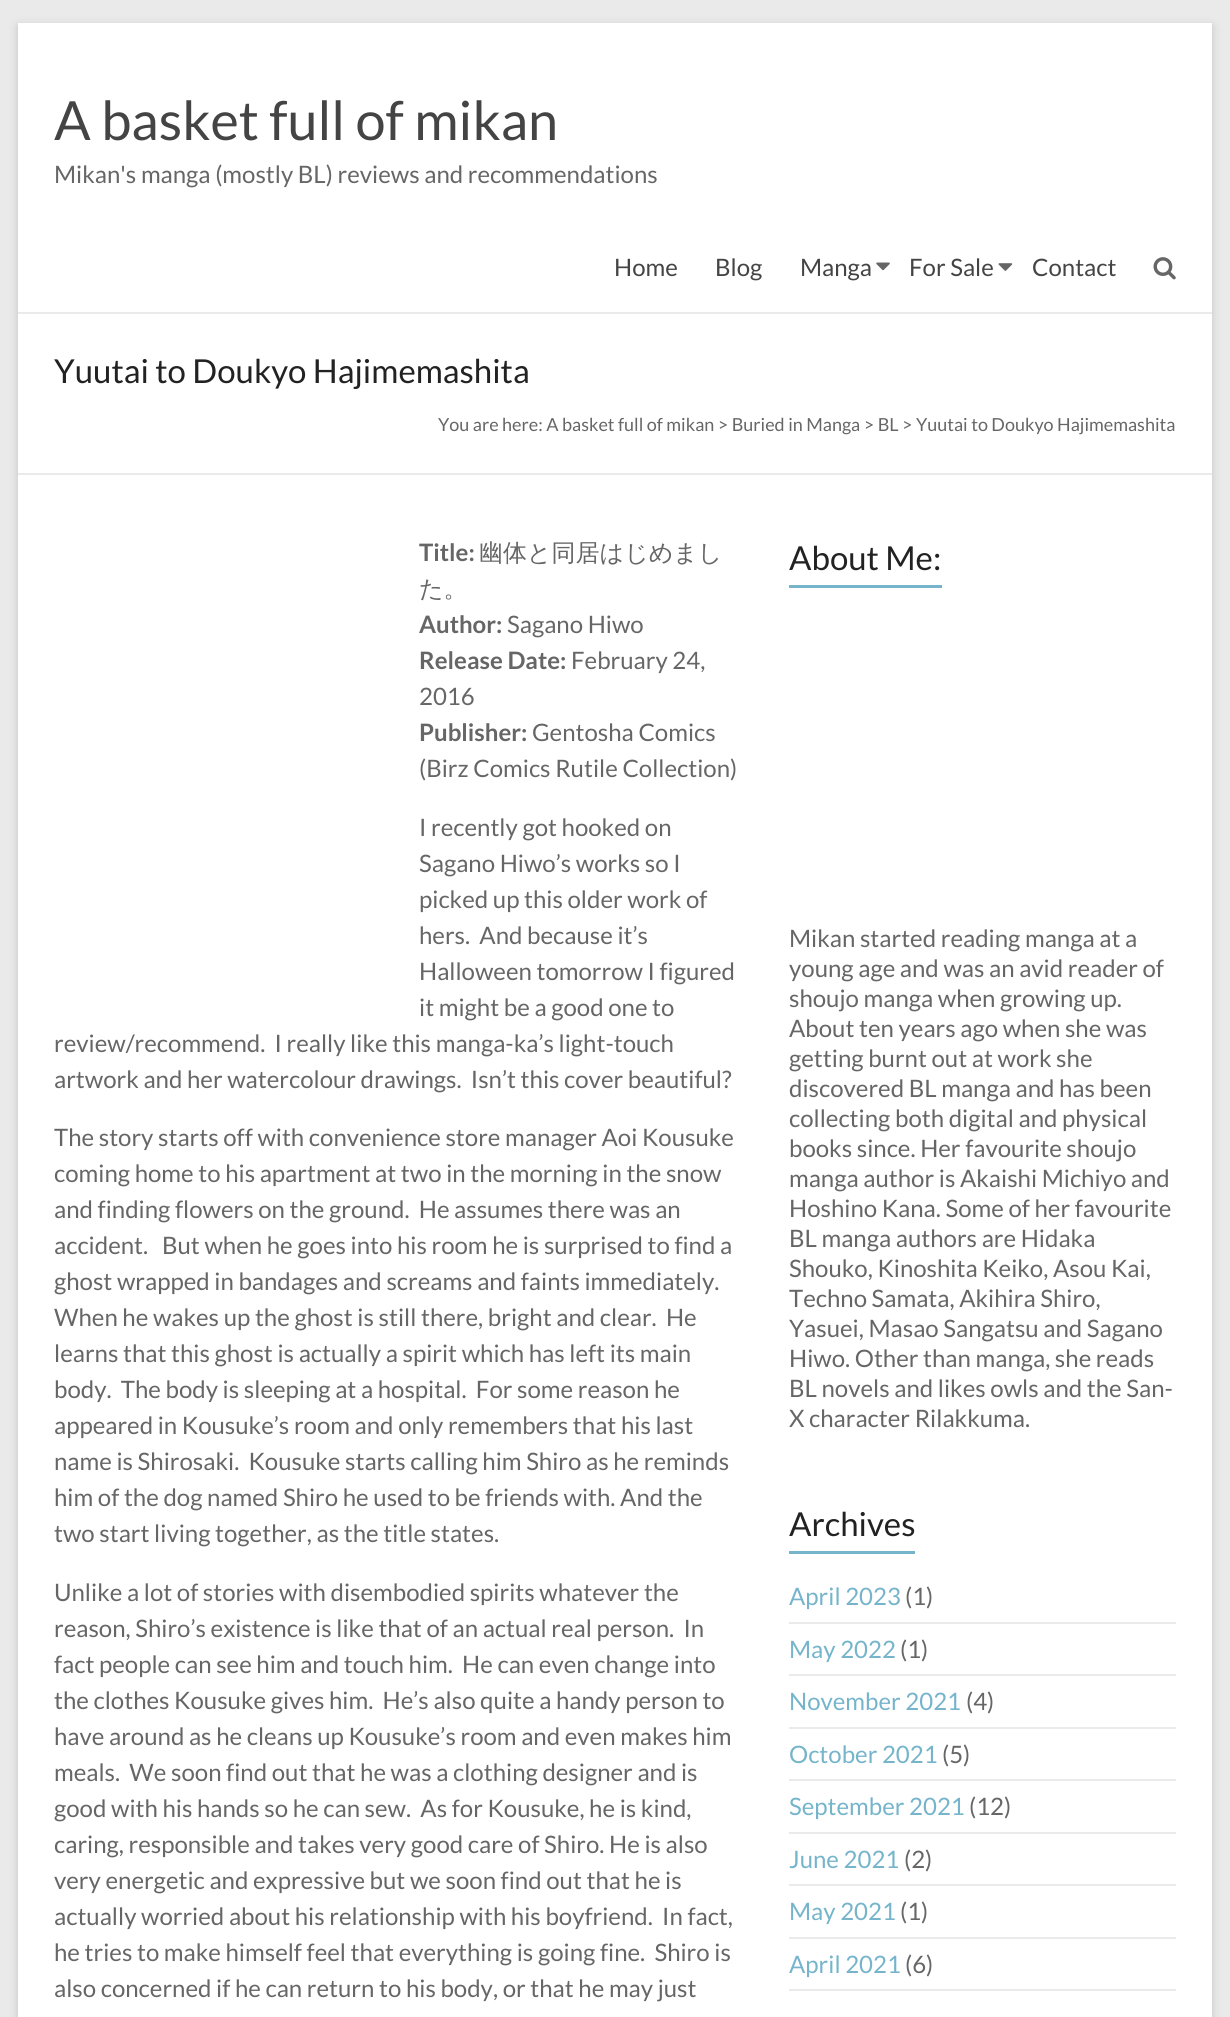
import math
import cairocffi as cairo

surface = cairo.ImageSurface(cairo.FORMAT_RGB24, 1230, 2017)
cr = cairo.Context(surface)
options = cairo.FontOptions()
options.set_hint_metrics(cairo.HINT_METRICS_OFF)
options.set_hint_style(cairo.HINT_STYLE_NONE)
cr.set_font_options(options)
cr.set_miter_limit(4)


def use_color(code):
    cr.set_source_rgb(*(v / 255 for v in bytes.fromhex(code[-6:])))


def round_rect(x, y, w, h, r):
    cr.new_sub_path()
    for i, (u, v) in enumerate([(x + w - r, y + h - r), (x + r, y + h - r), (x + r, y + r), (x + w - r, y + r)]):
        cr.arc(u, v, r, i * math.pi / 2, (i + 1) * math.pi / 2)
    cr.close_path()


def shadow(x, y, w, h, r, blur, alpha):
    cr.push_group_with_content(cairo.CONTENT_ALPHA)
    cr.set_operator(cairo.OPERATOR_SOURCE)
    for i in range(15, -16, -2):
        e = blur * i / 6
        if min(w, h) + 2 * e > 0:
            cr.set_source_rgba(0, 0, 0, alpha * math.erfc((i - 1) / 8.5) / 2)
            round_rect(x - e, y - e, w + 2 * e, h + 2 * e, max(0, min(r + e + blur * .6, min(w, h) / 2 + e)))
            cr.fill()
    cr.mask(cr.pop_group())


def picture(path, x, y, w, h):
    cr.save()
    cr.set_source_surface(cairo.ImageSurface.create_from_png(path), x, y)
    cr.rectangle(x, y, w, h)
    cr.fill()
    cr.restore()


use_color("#eaeaea")
cr.paint()
use_color("#646464")
shadow(18, 26, 1194, 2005, 0, 4.5, 0.3)
use_color("#ffffff")
cr.rectangle(18, 23, 1194, 1994)
cr.fill()
use_color("#eaeaea")
cr.rectangle(18, 312, 1194, 2)
cr.fill()
cr.select_font_face("Lato")
cr.set_font_size(54)
use_color("#444444")
cr.move_to(54, 140)
cr.show_text("A basket full of mikan")
cr.set_font_size(24)
use_color("#666666")
cr.move_to(54, 183)
cr.show_text("Mikan's manga (mostly BL) reviews and recommendations")
use_color("#444444")
cr.move_to(614, 276)
cr.show_text("Home")
cr.move_to(715, 276)
cr.show_text("Blog")
cr.move_to(800, 276)
cr.show_text("Manga")
picture("img1.png", 876, 262, 14, 9)
cr.move_to(909, 276)
cr.show_text("For Sale")
picture("img2.png", 998, 263, 15, 8)
cr.move_to(1032, 276)
cr.show_text("Contact")
picture("img3.png", 1153, 257, 23, 23)
use_color("#eaeaea")
cr.rectangle(18, 473, 1194, 2)
cr.fill()
cr.set_font_size(33)
use_color("#222222")
cr.move_to(54, 383)
cr.show_text("Yuutai to Doukyo Hajimemashita")
cr.set_font_size(18)
use_color("#666666")
cr.move_to(438, 431)
cr.show_text("You are here: A basket full of mikan > Buried in Manga > BL > Yuutai to Doukyo Hajimemashita")
cr.select_font_face("Lato", cairo.FONT_SLANT_NORMAL, cairo.FONT_WEIGHT_BOLD)
cr.set_font_size(24)
cr.move_to(419, 561)
cr.show_text("Title:")
cr.select_font_face("WenQuanYi Zen Hei Medium")
cr.move_to(479, 561)
cr.show_text("幽体と同居はじめまし")
cr.move_to(419, 597)
cr.show_text("た。")
cr.select_font_face("Lato", cairo.FONT_SLANT_NORMAL, cairo.FONT_WEIGHT_BOLD)
cr.move_to(419, 633)
cr.show_text("Author:")
cr.select_font_face("Lato")
cr.move_to(507, 633)
cr.show_text("Sagano Hiwo")
cr.select_font_face("Lato", cairo.FONT_SLANT_NORMAL, cairo.FONT_WEIGHT_BOLD)
cr.move_to(419, 669)
cr.show_text("Release Date:")
cr.select_font_face("Lato")
cr.move_to(571, 669)
cr.show_text("February 24,")
cr.move_to(419, 705)
cr.show_text("2016")
cr.select_font_face("Lato", cairo.FONT_SLANT_NORMAL, cairo.FONT_WEIGHT_BOLD)
cr.move_to(419, 741)
cr.show_text("Publisher:")
cr.select_font_face("Lato")
cr.move_to(532, 741)
cr.show_text("Gentosha Comics")
cr.move_to(419, 777)
cr.show_text("(Birz Comics Rutile Collection)")
cr.move_to(419, 836)
cr.show_text("I recently got hooked on")
cr.move_to(419, 872)
cr.show_text("Sagano Hiwo’s works so I")
cr.move_to(419, 908)
cr.show_text("picked up this older work of")
cr.move_to(419, 944)
cr.show_text("hers.  And because it’s")
cr.move_to(419, 980)
cr.show_text("Halloween tomorrow I figured")
cr.move_to(419, 1016)
cr.show_text("it might be a good one to")
cr.move_to(54, 1052)
cr.show_text("review/recommend.  I really like this manga-ka’s light-touch")
cr.move_to(54, 1088)
cr.show_text("artwork and her watercolour drawings.  Isn’t this cover beautiful?")
cr.move_to(54, 1146)
cr.show_text("The story starts off with convenience store manager Aoi Kousuke")
cr.move_to(54, 1182)
cr.show_text("coming home to his apartment at two in the morning in the snow")
cr.move_to(54, 1218)
cr.show_text("and finding flowers on the ground.  He assumes there was an")
cr.move_to(54, 1254)
cr.show_text("accident.   But when he goes into his room he is surprised to find a")
cr.move_to(54, 1290)
cr.show_text("ghost wrapped in bandages and screams and faints immediately.")
cr.move_to(54, 1326)
cr.show_text("When he wakes up the ghost is still there, bright and clear.  He")
cr.move_to(54, 1362)
cr.show_text("learns that this ghost is actually a spirit which has left its main")
cr.move_to(54, 1398)
cr.show_text("body.  The body is sleeping at a hospital.  For some reason he")
cr.move_to(54, 1434)
cr.show_text("appeared in Kousuke’s room and only remembers that his last")
cr.move_to(54, 1470)
cr.show_text("name is Shirosaki.  Kousuke starts calling him Shiro as he reminds")
cr.move_to(54, 1506)
cr.show_text("him of the dog named Shiro he used to be friends with. And the")
cr.move_to(54, 1542)
cr.show_text("two start living together, as the title states.")
cr.move_to(54, 1601)
cr.show_text("Unlike a lot of stories with disembodied spirits whatever the")
cr.move_to(54, 1637)
cr.show_text("reason, Shiro’s existence is like that of an actual real person.  In")
cr.move_to(54, 1673)
cr.show_text("fact people can see him and touch him.  He can even change into")
cr.move_to(54, 1709)
cr.show_text("the clothes Kousuke gives him.  He’s also quite a handy person to")
cr.move_to(54, 1745)
cr.show_text("have around as he cleans up Kousuke’s room and even makes him")
cr.move_to(54, 1781)
cr.show_text("meals.  We soon find out that he was a clothing designer and is")
cr.move_to(54, 1817)
cr.show_text("good with his hands so he can sew.  As for Kousuke, he is kind,")
cr.move_to(54, 1853)
cr.show_text("caring, responsible and takes very good care of Shiro. He is also")
cr.move_to(54, 1889)
cr.show_text("very energetic and expressive but we soon find out that he is")
cr.move_to(54, 1925)
cr.show_text("actually worried about his relationship with his boyfriend.  In fact,")
cr.move_to(54, 1961)
cr.show_text("he tries to make himself feel that everything is going fine.  Shiro is")
cr.move_to(54, 1997)
cr.show_text("also concerned if he can return to his body, or that he may just")
cr.set_font_size(33)
use_color("#222222")
cr.move_to(789, 570)
cr.show_text("About Me:")
use_color("#75b4cb")
cr.rectangle(789, 585, 153, 3)
cr.fill()
cr.set_font_size(24)
use_color("#666666")
cr.move_to(789, 947)
cr.show_text("Mikan started reading manga at a")
cr.move_to(789, 977)
cr.show_text("young age and was an avid reader of")
cr.move_to(789, 1007)
cr.show_text("shoujo manga when growing up.")
cr.move_to(789, 1037)
cr.show_text("About ten years ago when she was")
cr.move_to(789, 1067)
cr.show_text("getting burnt out at work she")
cr.move_to(789, 1097)
cr.show_text("discovered BL manga and has been")
cr.move_to(789, 1127)
cr.show_text("collecting both digital and physical")
cr.move_to(789, 1157)
cr.show_text("books since. Her favourite shoujo")
cr.move_to(789, 1187)
cr.show_text("manga author is Akaishi Michiyo and")
cr.move_to(789, 1217)
cr.show_text("Hoshino Kana. Some of her favourite")
cr.move_to(789, 1247)
cr.show_text("BL manga authors are Hidaka")
cr.move_to(789, 1277)
cr.show_text("Shouko, Kinoshita Keiko, Asou Kai,")
cr.move_to(789, 1307)
cr.show_text("Techno Samata, Akihira Shiro,")
cr.move_to(789, 1337)
cr.show_text("Yasuei, Masao Sangatsu and Sagano")
cr.move_to(789, 1367)
cr.show_text("Hiwo. Other than manga, she reads")
cr.move_to(789, 1397)
cr.show_text("BL novels and likes owls and the San-")
cr.move_to(789, 1427)
cr.show_text("X character Rilakkuma.")
cr.set_font_size(33)
use_color("#222222")
cr.move_to(789, 1536)
cr.show_text("Archives")
use_color("#75b4cb")
cr.rectangle(789, 1551, 126, 3)
cr.fill()
use_color("#eaeaea")
cr.rectangle(789, 1622, 387, 2)
cr.fill()
cr.set_font_size(24)
use_color("#75b4cb")
cr.move_to(789, 1605)
cr.show_text("April 2023")
use_color("#666666")
cr.move_to(905, 1605)
cr.show_text("(1)")
use_color("#eaeaea")
cr.rectangle(789, 1674, 387, 2)
cr.fill()
use_color("#75b4cb")
cr.move_to(789, 1658)
cr.show_text("May 2022")
use_color("#666666")
cr.move_to(900, 1658)
cr.show_text("(1)")
use_color("#eaeaea")
cr.rectangle(789, 1727, 387, 2)
cr.fill()
use_color("#75b4cb")
cr.move_to(789, 1710)
cr.show_text("November 2021")
use_color("#666666")
cr.move_to(966, 1710)
cr.show_text("(4)")
use_color("#eaeaea")
cr.rectangle(789, 1779, 387, 2)
cr.fill()
use_color("#75b4cb")
cr.move_to(789, 1763)
cr.show_text("October 2021")
use_color("#666666")
cr.move_to(942, 1763)
cr.show_text("(5)")
use_color("#eaeaea")
cr.rectangle(789, 1832, 387, 2)
cr.fill()
use_color("#75b4cb")
cr.move_to(789, 1815)
cr.show_text("September 2021")
use_color("#666666")
cr.move_to(969, 1815)
cr.show_text("(12)")
use_color("#eaeaea")
cr.rectangle(789, 1884, 387, 2)
cr.fill()
use_color("#75b4cb")
cr.move_to(789, 1868)
cr.show_text("June 2021")
use_color("#666666")
cr.move_to(904, 1868)
cr.show_text("(2)")
use_color("#eaeaea")
cr.rectangle(789, 1937, 387, 2)
cr.fill()
use_color("#75b4cb")
cr.move_to(789, 1920)
cr.show_text("May 2021")
use_color("#666666")
cr.move_to(900, 1920)
cr.show_text("(1)")
use_color("#eaeaea")
cr.rectangle(789, 1989, 387, 2)
cr.fill()
use_color("#75b4cb")
cr.move_to(789, 1973)
cr.show_text("April 2021")
use_color("#666666")
cr.move_to(905, 1973)
cr.show_text("(6)")
surface.write_to_png("result.png")
